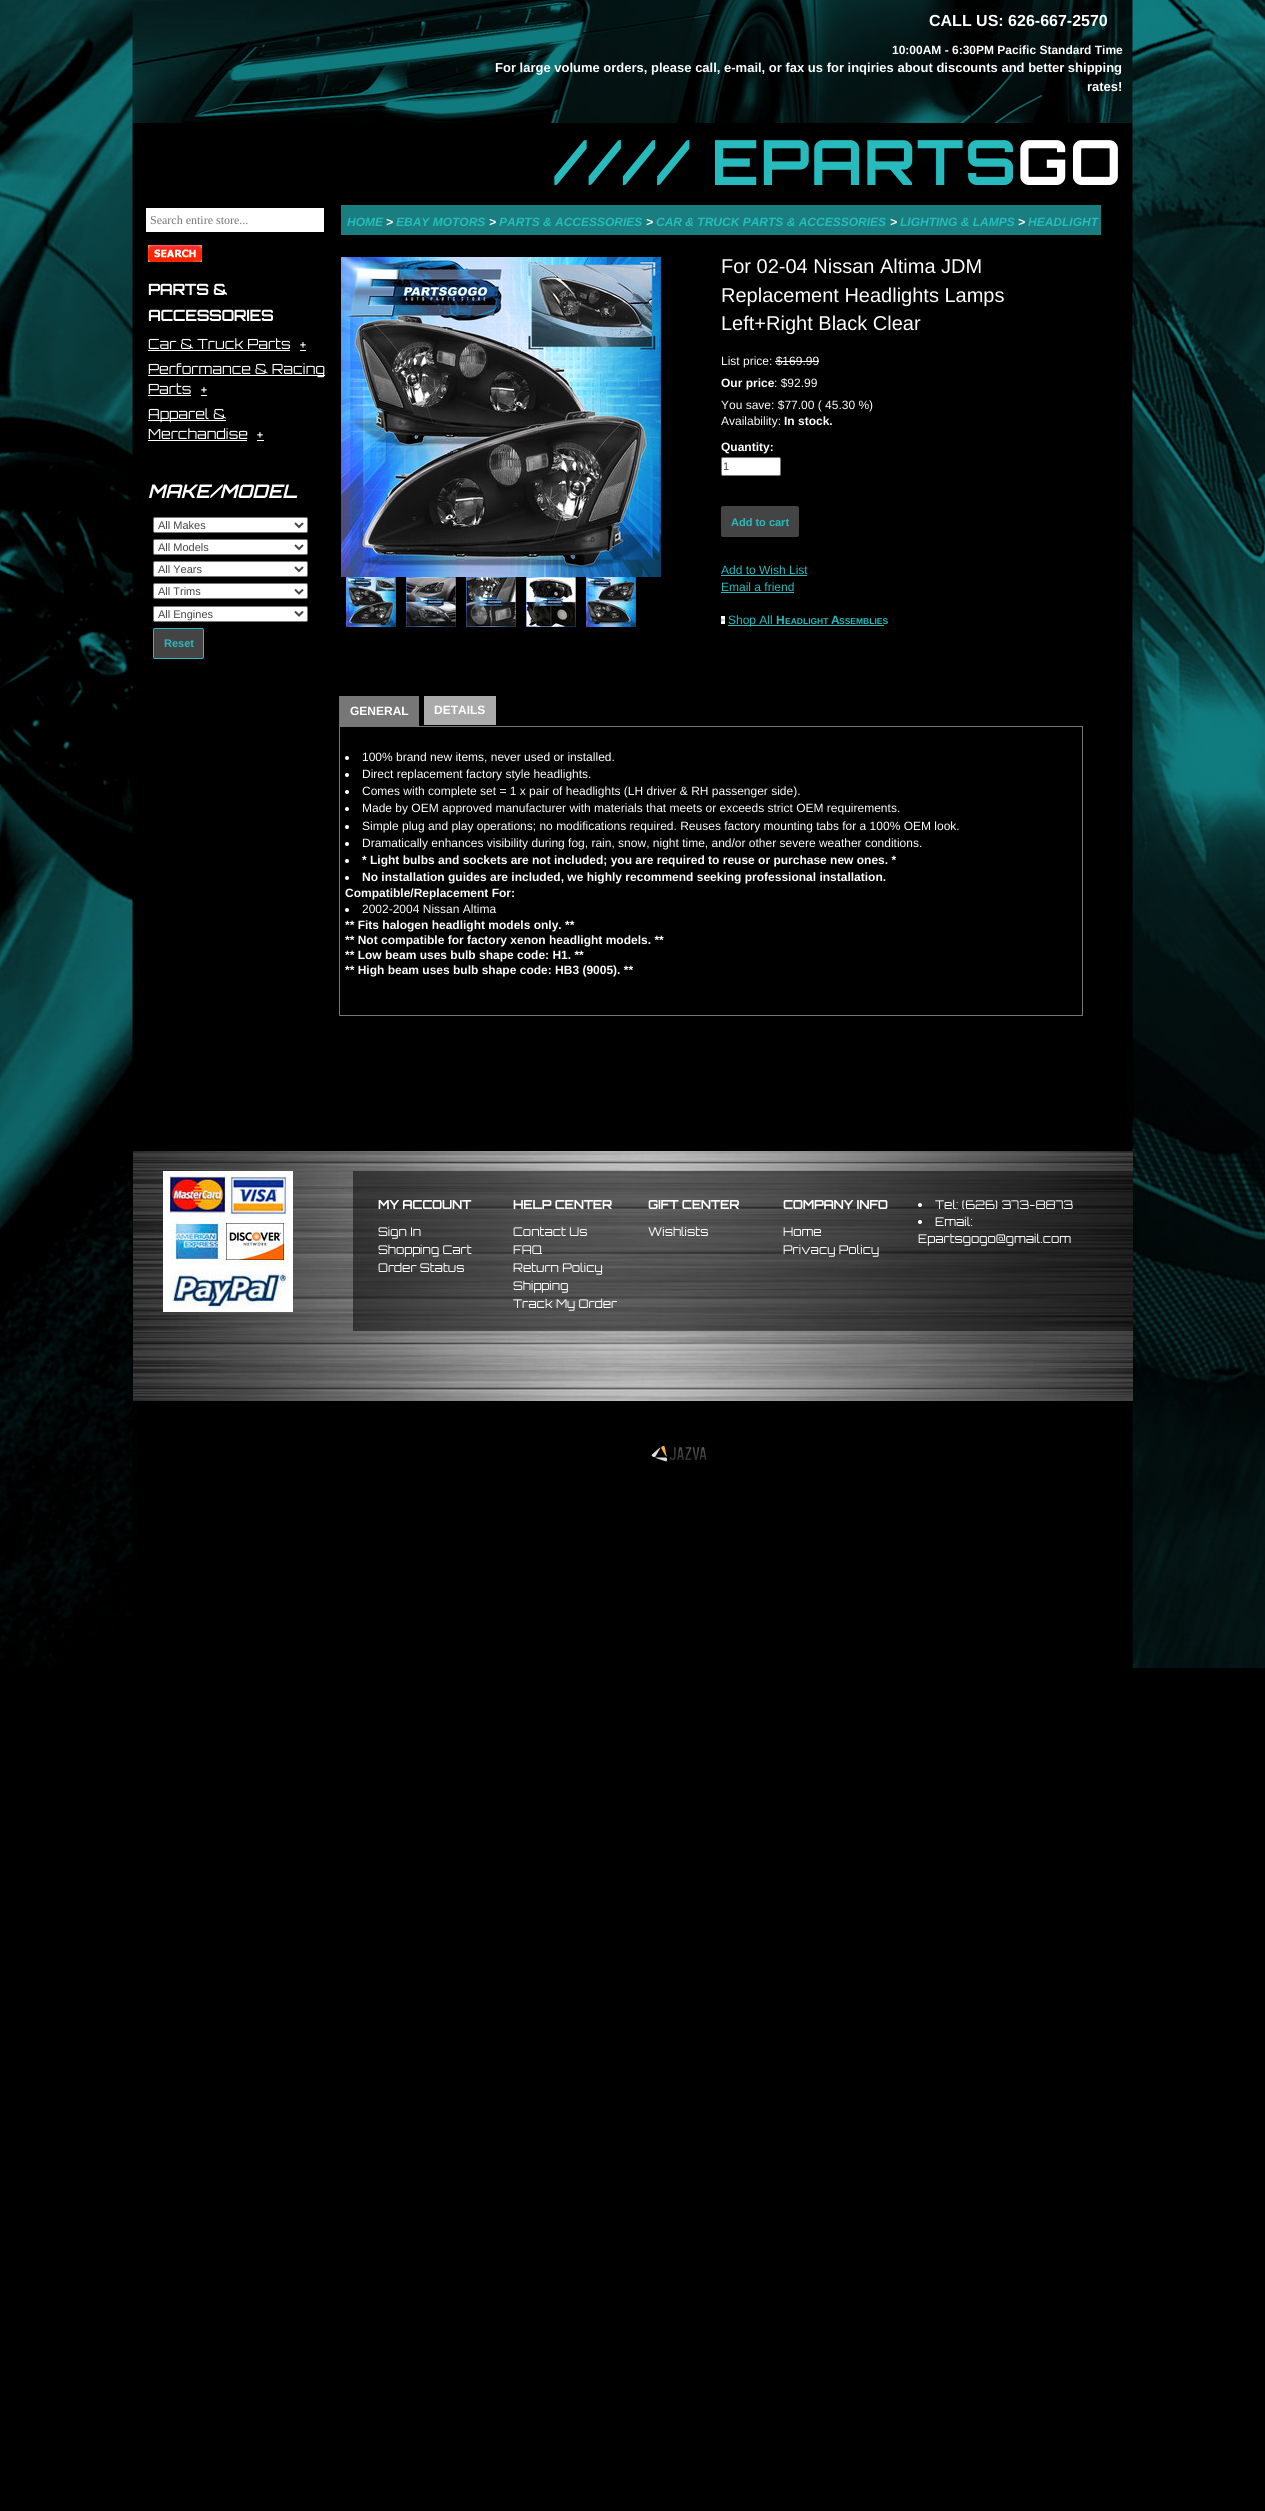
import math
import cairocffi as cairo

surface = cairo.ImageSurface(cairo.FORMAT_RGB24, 1265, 2511)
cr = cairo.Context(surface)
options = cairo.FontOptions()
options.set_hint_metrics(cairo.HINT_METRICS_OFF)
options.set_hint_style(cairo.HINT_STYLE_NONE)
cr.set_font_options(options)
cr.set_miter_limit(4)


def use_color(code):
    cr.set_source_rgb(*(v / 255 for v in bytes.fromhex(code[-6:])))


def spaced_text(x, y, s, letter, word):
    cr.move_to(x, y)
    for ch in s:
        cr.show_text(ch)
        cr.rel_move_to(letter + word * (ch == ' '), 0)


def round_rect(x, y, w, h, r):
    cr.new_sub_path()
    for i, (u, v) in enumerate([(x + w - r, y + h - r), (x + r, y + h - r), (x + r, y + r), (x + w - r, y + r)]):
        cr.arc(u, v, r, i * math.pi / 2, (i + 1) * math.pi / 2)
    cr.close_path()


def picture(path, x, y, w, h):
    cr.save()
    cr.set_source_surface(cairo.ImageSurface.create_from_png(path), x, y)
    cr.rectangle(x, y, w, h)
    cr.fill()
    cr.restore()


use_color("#000000")
cr.paint()
picture("img1.png", 0, 0, 1265, 1668)
cr.select_font_face("Liberation Sans", cairo.FONT_SLANT_NORMAL, cairo.FONT_WEIGHT_BOLD)
cr.set_font_size(16)
use_color("#ffffff")
cr.move_to(929, 26)
cr.show_text("CALL US: 626-667-2570")
cr.set_font_size(12)
cr.move_to(892, 54)
cr.show_text("10:00AM - 6:30PM Pacific Standard Time")
cr.set_font_size(13)
cr.move_to(495, 72)
cr.show_text("For large volume orders, please call, e-mail, or fax us for inqiries about discounts and better shipping")
cr.move_to(1087, 91)
cr.show_text("rates!")
cr.select_font_face("Orbitron", cairo.FONT_SLANT_NORMAL, cairo.FONT_WEIGHT_BOLD)
cr.set_font_size(60)
use_color("#27bbbe")
spaced_text(554, 185, "//// EPARTS", 3, 0)
use_color("#ffffff")
spaced_text(1017, 185, "GO", 3, 0)
cr.rectangle(146, 208, 178, 24)
cr.fill()
cr.select_font_face("Liberation Serif")
cr.set_font_size(12)
use_color("#757575")
cr.move_to(150, 224)
cr.show_text("Search entire store...")
picture("img2.png", 148, 245, 54, 17)
cr.select_font_face("Orbitron", cairo.FONT_SLANT_NORMAL, cairo.FONT_WEIGHT_BOLD)
cr.set_font_size(15)
use_color("#ffffff")
cr.move_to(148, 295)
cr.show_text("PARTS &")
cr.move_to(148, 321)
cr.show_text("ACCESSORIES")
cr.select_font_face("Orbitron")
cr.set_font_size(14)
cr.move_to(148, 349)
cr.show_text("Car & Truck Parts")
cr.rectangle(148, 350, 142, 1)
cr.fill()
cr.move_to(300, 349)
cr.show_text("+")
cr.rectangle(300, 350, 6, 1)
cr.fill()
cr.rectangle(148, 375, 177, 1)
cr.fill()
cr.move_to(148, 374)
cr.show_text("Performance & Racing")
cr.move_to(148, 394)
cr.show_text("Parts")
cr.rectangle(148, 395, 43, 1)
cr.fill()
cr.move_to(201, 394)
cr.show_text("+")
cr.rectangle(201, 395, 6, 1)
cr.fill()
cr.rectangle(148, 420, 78, 1)
cr.fill()
cr.move_to(148, 419)
cr.show_text("Apparel &")
cr.move_to(148, 439)
cr.show_text("Merchandise")
cr.rectangle(148, 440, 99, 1)
cr.fill()
cr.move_to(257, 439)
cr.show_text("+")
cr.rectangle(257, 440, 7, 1)
cr.fill()
cr.select_font_face("Orbitron", cairo.FONT_SLANT_ITALIC, cairo.FONT_WEIGHT_BOLD)
cr.set_font_size(18)
spaced_text(148, 498, "MAKE/MODEL", 0.5, 0)
round_rect(153.5, 517.5, 154, 15, 1.5)
cr.fill_preserve()
use_color("#767676")
cr.set_line_width(1)
cr.stroke()
cr.new_path()
cr.move_to(295, 523)
cr.line_to(299, 527)
cr.line_to(303, 523)
use_color("#444444")
cr.set_line_width(2)
cr.stroke()
cr.select_font_face("Liberation Sans")
cr.set_font_size(11)
cr.move_to(158, 529)
cr.show_text("All Makes")
use_color("#ffffff")
round_rect(153.5, 539.5, 154, 15, 1.5)
cr.fill_preserve()
use_color("#767676")
cr.set_line_width(1)
cr.stroke()
cr.new_path()
cr.move_to(295, 545)
cr.line_to(299, 549)
cr.line_to(303, 545)
use_color("#444444")
cr.set_line_width(2)
cr.stroke()
cr.move_to(158, 551)
cr.show_text("All Models")
use_color("#ffffff")
round_rect(153.5, 561.5, 154, 15, 1.5)
cr.fill_preserve()
use_color("#767676")
cr.set_line_width(1)
cr.stroke()
cr.new_path()
cr.move_to(295, 567)
cr.line_to(299, 571)
cr.line_to(303, 567)
use_color("#444444")
cr.set_line_width(2)
cr.stroke()
cr.move_to(158, 573)
cr.show_text("All Years")
use_color("#ffffff")
round_rect(153.5, 583.5, 154, 15, 1.5)
cr.fill_preserve()
use_color("#767676")
cr.set_line_width(1)
cr.stroke()
cr.new_path()
cr.move_to(295, 589.5)
cr.line_to(299, 593.5)
cr.line_to(303, 589.5)
use_color("#444444")
cr.set_line_width(2)
cr.stroke()
cr.move_to(158, 595)
cr.show_text("All Trims")
use_color("#ffffff")
round_rect(153.5, 606.5, 154, 15, 1.5)
cr.fill_preserve()
use_color("#767676")
cr.set_line_width(1)
cr.stroke()
cr.new_path()
cr.move_to(295, 611.5)
cr.line_to(299, 615.5)
cr.line_to(303, 611.5)
use_color("#444444")
cr.set_line_width(2)
cr.stroke()
cr.move_to(158, 618)
cr.show_text("All Engines")
round_rect(153.5, 628.5, 50, 30, 1.5)
cr.fill_preserve()
use_color("#27bbbe")
cr.set_line_width(1)
cr.stroke()
cr.select_font_face("Liberation Sans", cairo.FONT_SLANT_NORMAL, cairo.FONT_WEIGHT_BOLD)
cr.move_to(164, 647)
cr.show_text("Reset")
use_color("#1a7e80")
cr.rectangle(341, 205, 760, 30)
cr.fill()
cr.select_font_face("Liberation Sans", cairo.FONT_SLANT_ITALIC, cairo.FONT_WEIGHT_BOLD)
cr.set_font_size(12)
use_color("#27bbbe")
cr.move_to(347, 226)
cr.show_text("HOME")
use_color("#ffffff")
cr.move_to(386, 226)
cr.show_text(">")
use_color("#27bbbe")
cr.move_to(396, 226)
cr.show_text("EBAY MOTORS")
use_color("#ffffff")
cr.move_to(489, 226)
cr.show_text(">")
use_color("#27bbbe")
cr.move_to(499, 226)
cr.show_text("PARTS & ACCESSORIES")
use_color("#ffffff")
cr.move_to(646, 226)
cr.show_text(">")
use_color("#27bbbe")
cr.move_to(656, 226)
cr.show_text("CAR & TRUCK PARTS & ACCESSORIES")
use_color("#ffffff")
cr.move_to(890, 226)
cr.show_text(">")
use_color("#27bbbe")
cr.move_to(900, 226)
cr.show_text("LIGHTING & LAMPS")
use_color("#ffffff")
cr.move_to(1018, 226)
cr.show_text(">")
use_color("#27bbbe")
cr.move_to(1028, 226)
cr.show_text("HEADLIGHT")
picture("img3.png", 341, 257, 320, 320)
picture("img4.png", 346, 577, 50, 50)
picture("img5.png", 406, 577, 50, 50)
picture("img6.png", 466, 577, 50, 50)
picture("img7.png", 526, 577, 50, 50)
picture("img8.png", 586, 577, 50, 50)
cr.select_font_face("Liberation Sans")
cr.set_font_size(20)
use_color("#ffffff")
cr.move_to(721, 273)
cr.show_text("For 02-04 Nissan Altima JDM")
cr.move_to(721, 302)
cr.show_text("Replacement Headlights Lamps")
cr.move_to(721, 330)
cr.show_text("Left+Right Black Clear")
cr.set_font_size(12)
cr.move_to(721, 365)
cr.show_text("List price: $169.99")
cr.rectangle(775, 361, 44, 1)
cr.fill()
cr.select_font_face("Liberation Sans", cairo.FONT_SLANT_NORMAL, cairo.FONT_WEIGHT_BOLD)
cr.move_to(721, 387)
cr.show_text("Our price")
cr.select_font_face("Liberation Sans")
cr.move_to(774, 387)
cr.show_text(": $92.99")
cr.move_to(721, 409)
cr.show_text("You save: $77.00 ( 45.30 %)")
cr.move_to(721, 425)
cr.show_text("Availability:")
cr.select_font_face("Liberation Sans", cairo.FONT_SLANT_NORMAL, cairo.FONT_WEIGHT_BOLD)
cr.move_to(784, 425)
cr.show_text("In stock.")
cr.move_to(721, 451)
cr.show_text("Quantity:")
round_rect(721.5, 457.5, 59, 18, 1.5)
cr.fill_preserve()
use_color("#767676")
cr.stroke()
cr.select_font_face("Liberation Sans")
cr.set_font_size(11)
use_color("#444444")
cr.move_to(723, 470)
cr.show_text("1")
round_rect(721, 506, 78, 31, 2)
cr.fill()
cr.select_font_face("Liberation Sans", cairo.FONT_SLANT_NORMAL, cairo.FONT_WEIGHT_BOLD)
use_color("#27bbbe")
cr.move_to(731, 526)
cr.show_text("Add to cart")
cr.select_font_face("Liberation Sans")
cr.set_font_size(12)
cr.move_to(721, 574)
cr.show_text("Add to Wish List")
cr.rectangle(721, 575, 86, 1)
cr.fill()
cr.move_to(721, 591)
cr.show_text("Email a friend")
cr.rectangle(721, 592, 73, 1)
cr.fill()
picture("img9.png", 721, 616, 4, 8)
cr.rectangle(728, 625, 156, 1)
cr.fill()
cr.move_to(728, 624)
cr.show_text("Shop All")
cr.select_font_face("Liberation Sans", cairo.FONT_SLANT_NORMAL, cairo.FONT_WEIGHT_BOLD)
cr.move_to(776, 624)
cr.show_text("H")
cr.set_font_size(8.5)
cr.move_to(785, 624)
cr.show_text("EADLIGHT")
cr.set_font_size(12)
cr.move_to(831, 624)
cr.show_text("A")
cr.set_font_size(8.5)
cr.move_to(839, 624)
cr.show_text("SSEMBLIES")
use_color("#777777")
cr.rectangle(340, 697, 78, 29)
cr.fill()
cr.rectangle(339, 696, 80, 1)
cr.fill()
cr.rectangle(418, 696, 1, 30)
cr.fill()
cr.rectangle(339, 696, 1, 30)
cr.fill()
cr.set_font_size(12)
use_color("#ffffff")
cr.move_to(350, 715)
cr.show_text("GENERAL")
use_color("#aaaaaa")
cr.rectangle(424, 696, 72, 29)
cr.fill()
use_color("#ffffff")
cr.move_to(434, 714)
cr.show_text("DETAILS")
cr.rectangle(339.5, 726.5, 743, 289)
use_color("#777777")
cr.stroke()
use_color("#ffffff")
cr.arc(347, 758, 2, 0, 2 * math.pi)
cr.fill()
cr.select_font_face("Liberation Sans")
cr.move_to(362, 761)
cr.show_text("100% brand new items, never used or installed.")
cr.new_path()
cr.arc(347, 775, 2, 0, 2 * math.pi)
cr.fill()
cr.move_to(362, 778)
cr.show_text("Direct replacement factory style headlights.")
cr.new_path()
cr.arc(347, 792, 2, 0, 2 * math.pi)
cr.fill()
cr.move_to(362, 795)
cr.show_text("Comes with complete set = 1 x pair of headlights (LH driver & RH passenger side).")
cr.new_path()
cr.arc(347, 809, 2, 0, 2 * math.pi)
cr.fill()
cr.move_to(362, 812)
cr.show_text("Made by OEM approved manufacturer with materials that meets or exceeds strict OEM requirements.")
cr.new_path()
cr.arc(347, 827, 2, 0, 2 * math.pi)
cr.fill()
cr.move_to(362, 830)
cr.show_text("Simple plug and play operations; no modifications required. Reuses factory mounting tabs for a 100% OEM look.")
cr.new_path()
cr.arc(347, 844, 2, 0, 2 * math.pi)
cr.fill()
cr.move_to(362, 847)
cr.show_text("Dramatically enhances visibility during fog, rain, snow, night time, and/or other severe weather conditions.")
cr.new_path()
cr.arc(347, 861, 2, 0, 2 * math.pi)
cr.fill()
cr.select_font_face("Liberation Sans", cairo.FONT_SLANT_NORMAL, cairo.FONT_WEIGHT_BOLD)
cr.move_to(362, 864)
cr.show_text("* Light bulbs and sockets are not included; you are required to reuse or purchase new ones. *")
cr.new_path()
cr.arc(347, 878, 2, 0, 2 * math.pi)
cr.fill()
cr.move_to(362, 881)
cr.show_text("No installation guides are included, we highly recommend seeking professional installation.")
cr.move_to(345, 897)
cr.show_text("Compatible/Replacement For:")
cr.new_path()
cr.arc(347, 910, 2, 0, 2 * math.pi)
cr.fill()
cr.select_font_face("Liberation Sans")
cr.move_to(362, 913)
cr.show_text("2002-2004 Nissan Altima")
cr.select_font_face("Liberation Sans", cairo.FONT_SLANT_NORMAL, cairo.FONT_WEIGHT_BOLD)
cr.move_to(345, 929)
cr.show_text("** Fits halogen headlight models only. **")
cr.move_to(345, 944)
cr.show_text("** Not compatible for factory xenon headlight models. **")
cr.move_to(345, 959)
cr.show_text("** Low beam uses bulb shape code: H1. **")
cr.move_to(345, 974)
cr.show_text("** High beam uses bulb shape code: HB3 (9005). **")
picture("img10.png", 133, 1151, 1000, 250)
picture("img11.png", 163, 1171, 130, 141)
cr.set_source_rgba(0, 0, 0, 0.5)
cr.rectangle(353, 1171, 780, 160)
cr.fill()
cr.select_font_face("Orbitron", cairo.FONT_SLANT_NORMAL, cairo.FONT_WEIGHT_BOLD)
use_color("#ffffff")
cr.move_to(378, 1209)
cr.show_text("MY ACCOUNT")
cr.select_font_face("Orbitron")
cr.move_to(378, 1236)
cr.show_text("Sign In")
cr.move_to(378, 1254)
cr.show_text("Shopping Cart")
cr.move_to(378, 1272)
cr.show_text("Order Status")
cr.select_font_face("Orbitron", cairo.FONT_SLANT_NORMAL, cairo.FONT_WEIGHT_BOLD)
cr.move_to(513, 1209)
cr.show_text("HELP CENTER")
cr.select_font_face("Orbitron")
cr.move_to(513, 1236)
cr.show_text("Contact Us")
cr.move_to(513, 1254)
cr.show_text("FAQ")
cr.move_to(513, 1272)
cr.show_text("Return Policy")
cr.move_to(513, 1290)
cr.show_text("Shipping")
cr.move_to(513, 1308)
cr.show_text("Track My Order")
cr.select_font_face("Orbitron", cairo.FONT_SLANT_NORMAL, cairo.FONT_WEIGHT_BOLD)
cr.move_to(648, 1209)
cr.show_text("GIFT CENTER")
cr.select_font_face("Orbitron")
cr.move_to(648, 1236)
cr.show_text("Wishlists")
cr.select_font_face("Orbitron", cairo.FONT_SLANT_NORMAL, cairo.FONT_WEIGHT_BOLD)
cr.move_to(783, 1209)
cr.show_text("COMPANY INFO")
cr.select_font_face("Orbitron")
cr.move_to(783, 1236)
cr.show_text("Home")
cr.move_to(783, 1254)
cr.show_text("Privacy Policy")
cr.new_path()
cr.arc(920, 1205, 2, 0, 2 * math.pi)
cr.fill()
cr.move_to(935, 1209)
cr.show_text("Tel: (626) 373-8873")
cr.new_path()
cr.arc(920, 1222, 2, 0, 2 * math.pi)
cr.fill()
cr.move_to(935, 1226)
cr.show_text("Email:")
cr.move_to(918, 1243)
cr.show_text("Epartsgogo@gmail.com")
picture("img12.png", 651, 1446, 56, 16)
surface.write_to_png("result.png")
